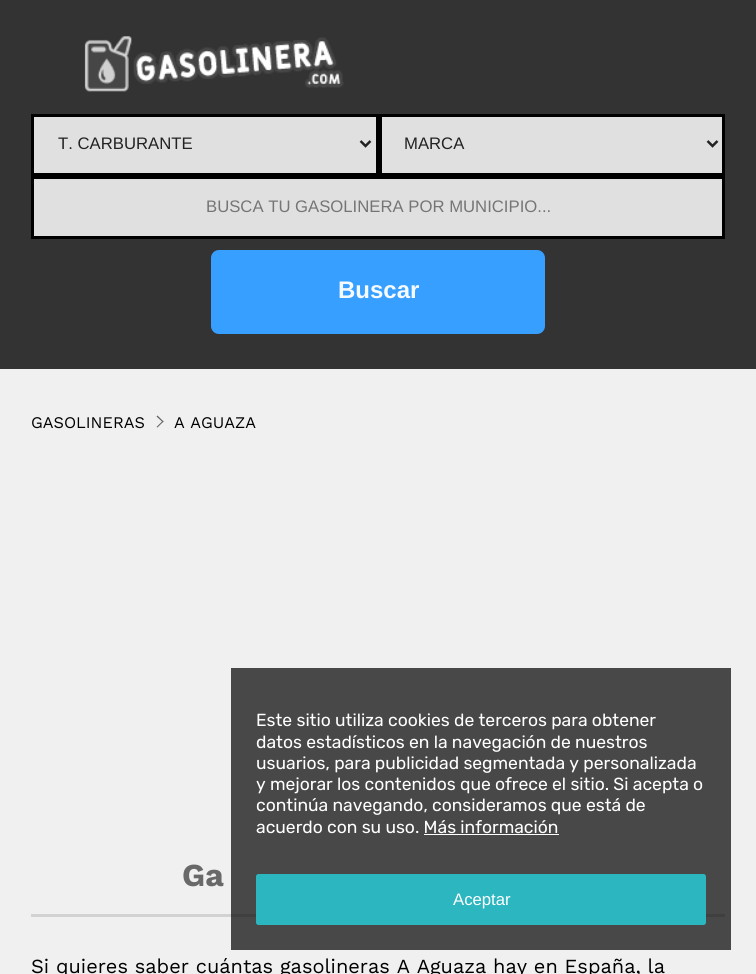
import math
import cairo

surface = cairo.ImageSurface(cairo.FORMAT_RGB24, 756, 974)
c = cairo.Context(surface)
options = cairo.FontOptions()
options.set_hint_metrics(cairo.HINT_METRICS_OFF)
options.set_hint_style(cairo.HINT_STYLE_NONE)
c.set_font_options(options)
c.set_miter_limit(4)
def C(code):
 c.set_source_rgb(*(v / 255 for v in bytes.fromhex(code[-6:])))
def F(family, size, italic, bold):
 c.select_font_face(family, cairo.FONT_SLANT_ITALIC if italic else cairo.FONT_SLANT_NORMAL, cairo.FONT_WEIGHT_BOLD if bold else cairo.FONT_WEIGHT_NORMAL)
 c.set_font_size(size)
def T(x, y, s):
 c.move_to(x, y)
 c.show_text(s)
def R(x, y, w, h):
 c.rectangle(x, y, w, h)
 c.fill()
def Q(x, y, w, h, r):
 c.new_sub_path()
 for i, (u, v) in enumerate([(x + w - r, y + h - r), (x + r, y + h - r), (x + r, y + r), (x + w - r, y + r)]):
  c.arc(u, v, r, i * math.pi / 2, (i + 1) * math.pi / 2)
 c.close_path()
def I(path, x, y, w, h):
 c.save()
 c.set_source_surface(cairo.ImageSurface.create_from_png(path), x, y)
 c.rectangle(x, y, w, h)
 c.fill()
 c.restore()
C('f0f0f0')
c.paint()
C('333333')
R(0,0,756,369)
I('1.png',84,36,260,56)
C('e0e0e0')
c.rectangle(32.5,115.5,345,59)
c.fill_preserve()
C('000000')
c.set_line_width(3)
c.stroke()
c.new_path()
c.move_to(360.5,141)
c.line_to(365.5,146)
c.line_to(370.5,141)
C('222222')
c.set_line_width(2.5)
c.stroke()
F('Liberation Sans',16.7,0,0)
T(58,149,'T. CARBURANTE')
C('e0e0e0')
c.rectangle(380.5,115.5,343,59)
c.fill_preserve()
C('000000')
c.set_line_width(3)
c.stroke()
c.new_path()
c.move_to(707.5,141)
c.line_to(712.5,146)
c.line_to(717.5,141)
C('222222')
c.set_line_width(2.5)
c.stroke()
T(404,149,'MARCA')
C('e0e0e0')
c.rectangle(32.5,177.5,691,60)
c.fill_preserve()
C('000000')
c.set_line_width(3)
c.stroke()
C('757575')
T(206,212,'BUSCA TU GASOLINERA POR MUNICIPIO...')
C('379fff')
Q(208.5,247.5,339,89,10.5)
c.fill_preserve()
C('333333')
c.set_line_width(5)
c.stroke()
F('Liberation Sans',24,0,1)
C('f5faff')
T(338,298,'Buscar')
F('Work Sans',16.25,0,0)
C('000000')
T(31,428,'GASOLINERAS')
C('626262')
c.new_path()
c.move_to(156.5,416.5)
c.line_to(157.5,415.5)
c.line_to(163.5,421.5)
c.line_to(163,422.5)
c.close_path()
c.fill()
c.new_path()
c.move_to(156.5,427)
c.line_to(163,420.5)
c.line_to(163.5,421.5)
c.line_to(157.5,427.5)
c.close_path()
c.fill()
C('000000')
T(174,428,'A AGUAZA')
C('d2d2d2')
R(31,914,694,3)
F('Work Sans',32,0,1)
C('696969')
T(182,886,'Ga')
F('Work Sans',20,0,0)
C('000000')
T(31,973,'Si quieres saber cuántas gasolineras A Aguaza hay en España, la')
c.set_source_rgba(0,0,0,0.7)
R(231,668,500,282)
F('Rubik',17.5,0,0)
C('ffffff')
T(256,726,'Este sitio utiliza cookies de terceros para obtener')
T(256,748,'datos estadísticos en la navegación de nuestros')
T(256,769,'usuarios, para publicidad segmentada y personalizada')
T(256,790,'y mejorar los contenidos que ofrece el sitio. Si acepta o')
T(256,811,'continúa navegando, consideramos que está de')
T(256,833,'acuerdo con su uso. Más información')
R(424,834,135,1)
C('2cb6bf')
Q(256,874,450,51,2.5)
c.fill()
F('Liberation Sans',16.7,0,0)
C('ffffff')
T(453,905,'Aceptar')
surface.write_to_png('o.png')
